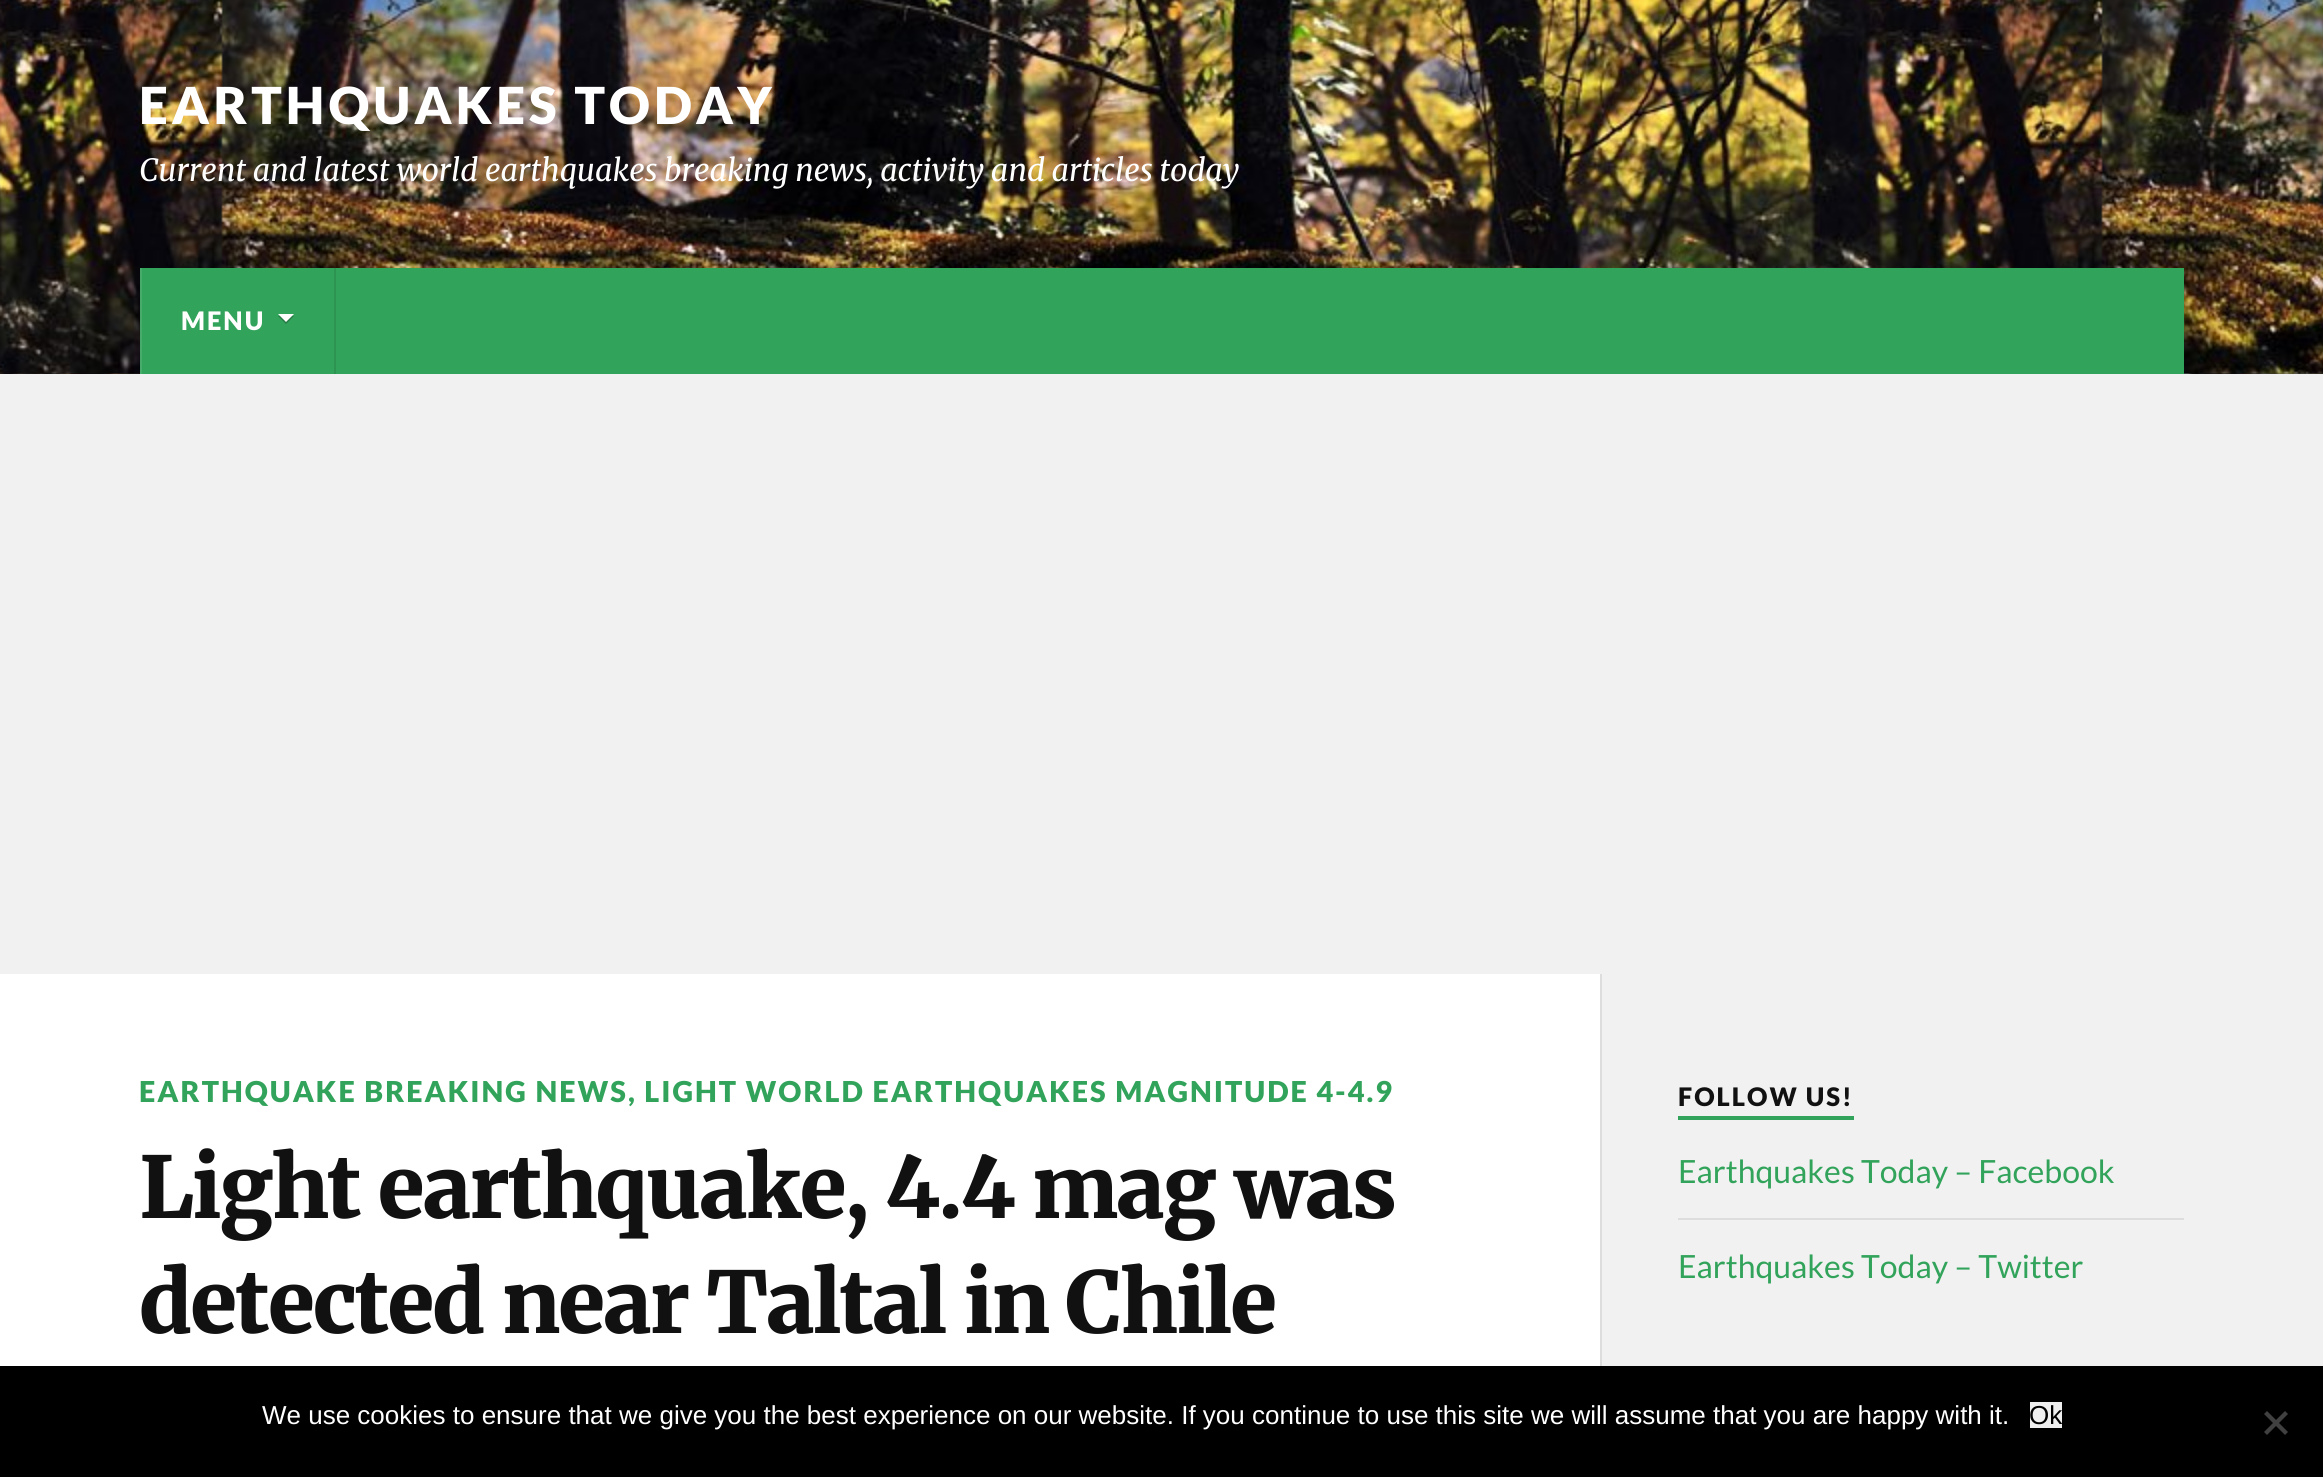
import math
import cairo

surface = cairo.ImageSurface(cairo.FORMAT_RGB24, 2323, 1477)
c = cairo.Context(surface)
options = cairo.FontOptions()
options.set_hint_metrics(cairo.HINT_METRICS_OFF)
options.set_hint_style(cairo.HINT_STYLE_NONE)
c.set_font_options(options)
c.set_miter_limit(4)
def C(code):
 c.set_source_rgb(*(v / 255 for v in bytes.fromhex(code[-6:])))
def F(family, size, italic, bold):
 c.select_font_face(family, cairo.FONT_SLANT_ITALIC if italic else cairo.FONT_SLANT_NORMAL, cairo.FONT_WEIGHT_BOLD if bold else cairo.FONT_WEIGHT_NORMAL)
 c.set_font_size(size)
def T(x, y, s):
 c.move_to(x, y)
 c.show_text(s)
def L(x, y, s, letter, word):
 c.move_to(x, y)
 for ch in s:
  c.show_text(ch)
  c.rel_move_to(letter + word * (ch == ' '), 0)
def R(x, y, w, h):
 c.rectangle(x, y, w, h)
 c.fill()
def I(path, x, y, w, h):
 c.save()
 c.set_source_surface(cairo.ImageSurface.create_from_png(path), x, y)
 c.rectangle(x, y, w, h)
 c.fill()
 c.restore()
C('f1f1f1')
c.paint()
I('1.png',0,0,2323,374)
F('Lato Black',51,0,0)
C('ffffff')
L(139,124,'EARTHQUAKES TODAY',4,0)
F('Merriweather Light',30.6,1,0)
T(139,181,'Current and latest world earthquakes breaking news, activity and articles today')
C('32a35a')
R(142,268,2042,106)
C('2d9351')
R(334,268,2,106)
C('47ac6b')
R(140,268,2,106)
F('Lato Black',25.5,0,0)
C('ffffff')
L(181,330,'MENU',2,0)
C('267a44')
c.new_path()
c.move_to(278,316)
c.line_to(294,316)
c.line_to(286,324)
c.close_path()
c.fill()
C('ffffff')
c.new_path()
c.move_to(278,314)
c.line_to(294,314)
c.line_to(286,322)
c.close_path()
c.fill()
R(0,974,1600,392)
F('Lato Black',28.8,0,0)
C('32a35a')
L(139,1102,'EARTHQUAKE BREAKING NEWS, LIGHT WORLD EARTHQUAKES MAGNITUDE 4-4.9',2,0)
F('Merriweather Black',85,0,0)
C('111111')
L(139,1218,'Light earthquake, 4.4 mag was',-2,0)
L(139,1333,'detected near Taltal in Chile',-2,0)
C('dddddd')
R(1600,974,2,392)
C('32a35a')
R(1678,1116,176,4)
F('Lato Black',25.5,0,0)
C('111111')
L(1678,1106,'FOLLOW US!',2,0)
C('dddddd')
R(1678,1218,506,2)
F('Lato',32,0,0)
C('32a35a')
T(1678,1183,'Earthquakes Today – Facebook')
T(1678,1278,'Earthquakes Today – Twitter')
C('000000')
R(0,1366,2323,111)
F('Liberation Sans',26,0,0)
C('ffffff')
T(262,1424,'We use cookies to ensure that we give you the best experience on our website. If you continue to use this site we will assume that you are happy with it.')
C('efefef')
R(2030,1402,32,26)
C('000000')
T(2029,1424,'Ok')
C('404040')
c.new_path()
c.move_to(2285,1411)
c.line_to(2288,1414)
c.line_to(2267,1435)
c.line_to(2264,1432)
c.close_path()
c.fill()
c.new_path()
c.move_to(2264,1414)
c.line_to(2267,1411)
c.line_to(2288,1432)
c.line_to(2285,1435)
c.close_path()
c.fill()
surface.write_to_png('o.png')
